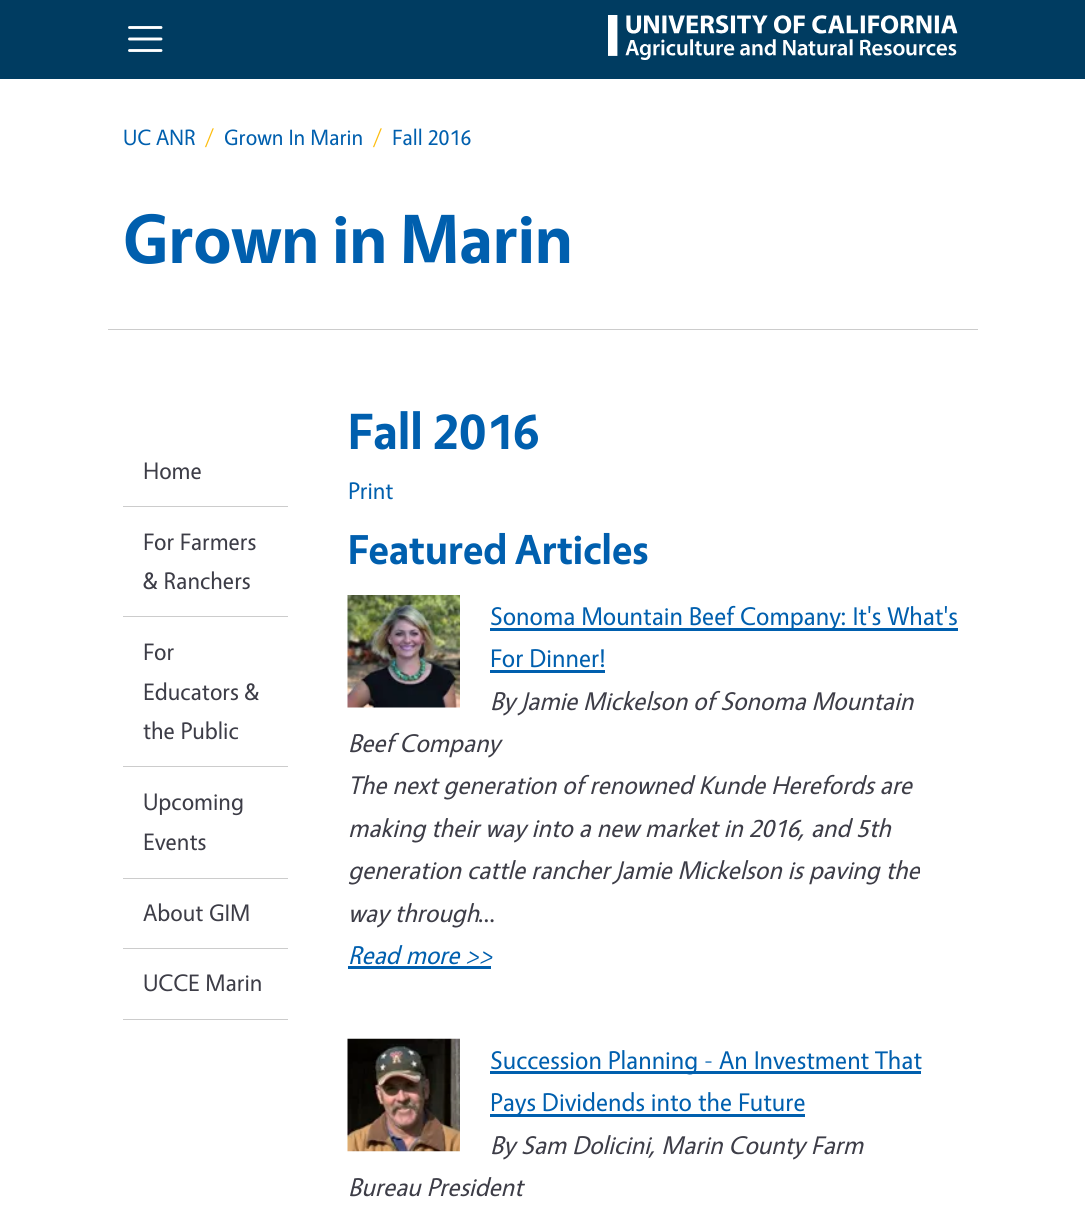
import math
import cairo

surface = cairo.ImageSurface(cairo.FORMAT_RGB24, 1085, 1218)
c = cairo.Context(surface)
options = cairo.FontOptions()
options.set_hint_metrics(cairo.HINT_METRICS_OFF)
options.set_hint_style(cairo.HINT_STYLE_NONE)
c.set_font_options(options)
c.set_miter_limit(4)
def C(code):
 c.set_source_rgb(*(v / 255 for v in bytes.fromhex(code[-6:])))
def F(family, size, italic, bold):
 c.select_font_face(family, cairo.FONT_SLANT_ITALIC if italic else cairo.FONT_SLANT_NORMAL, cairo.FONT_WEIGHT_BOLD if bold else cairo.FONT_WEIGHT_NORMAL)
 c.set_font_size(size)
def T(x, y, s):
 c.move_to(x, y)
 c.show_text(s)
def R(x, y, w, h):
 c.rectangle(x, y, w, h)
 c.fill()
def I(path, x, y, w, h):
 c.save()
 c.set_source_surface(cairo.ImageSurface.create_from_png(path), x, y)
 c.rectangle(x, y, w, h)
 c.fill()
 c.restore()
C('ffffff')
c.paint()
C('003c61')
R(0,0,1085,79)
c.new_path()
c.move_to(129.5,27.5)
c.line_to(161,27.5)
c.move_to(129.5,39)
c.line_to(161,39)
c.move_to(129.5,50.5)
c.line_to(161,50.5)
C('ffffff')
c.set_line_width(2.9)
c.set_line_cap(cairo.LINE_CAP_ROUND)
c.stroke()
I('1.png',608,15,350,45)
F('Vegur',22.25,0,0)
C('005fae')
T(123,145,'UC ANR')
C('fdbd10')
T(205,145,'/')
C('005fae')
T(224,145,'Grown In Marin')
C('fdbd10')
T(373,145,'/')
C('005fae')
T(392,145,'Fall 2016')
C('cccccc')
R(108,329,870,1)
F('Vegur',70,0,1)
C('005fae')
T(123,263,'Grown in Marin')
C('cccccc')
R(123,506,165,1)
F('Vegur',24,0,0)
C('3d3d47')
T(143,479,'Home')
C('cccccc')
R(123,616,165,1)
C('3d3d47')
T(143,550,'For Farmers')
T(143,589,'& Ranchers')
C('cccccc')
R(123,766,165,1)
C('3d3d47')
T(143,660,'For')
T(143,700,'Educators &')
T(143,739,'the Public')
C('cccccc')
R(123,878,165,1)
C('3d3d47')
T(143,810,'Upcoming')
T(143,850,'Events')
C('cccccc')
R(123,948,165,1)
C('3d3d47')
T(143,921,'About GIM')
C('cccccc')
R(123,1019,165,1)
C('3d3d47')
T(143,991,'UCCE Marin')
F('Vegur',51.5,0,1)
C('005fae')
T(348,449,'Fall 2016')
F('Vegur',24,0,0)
T(348,499,'Print')
F('Vegur',42.25,0,1)
T(348,564,'Featured Articles')
I('2.png',347,595,113,113)
R(490,628,468,3)
F('Vegur',25.7,0,0)
T(490,625,'Sonoma Mountain Beef Company: It\'s What\'s')
T(490,667,'For Dinner!')
R(490,670,115,3)
F('Vegur',25.7,1,0)
C('3d3d47')
T(490,710,'By Jamie Mickelson of Sonoma Mountain')
T(348,752,'Beef Company')
T(348,794,'The next generation of renowned Kunde Herefords are')
T(348,837,'making their way into a new market in 2016, and 5th')
T(348,879,'generation cattle rancher Jamie Mickelson is paving the')
T(348,922,'way through')
F('Vegur',25.7,0,0)
T(478,922,'...')
F('Vegur',25.7,1,0)
C('005fae')
T(348,964,'Read more >>')
R(348,966,143,3)
I('3.png',347,1038,113,114)
R(490,1071,431,3)
F('Vegur',25.7,0,0)
T(490,1069,'Succession Planning - An Investment That')
R(490,1114,315,3)
T(490,1111,'Pays Dividends into the Future')
F('Vegur',25.7,1,0)
C('3d3d47')
T(490,1154,'By Sam Dolicini, Marin County Farm')
T(348,1196,'Bureau President')
surface.write_to_png('o.png')
